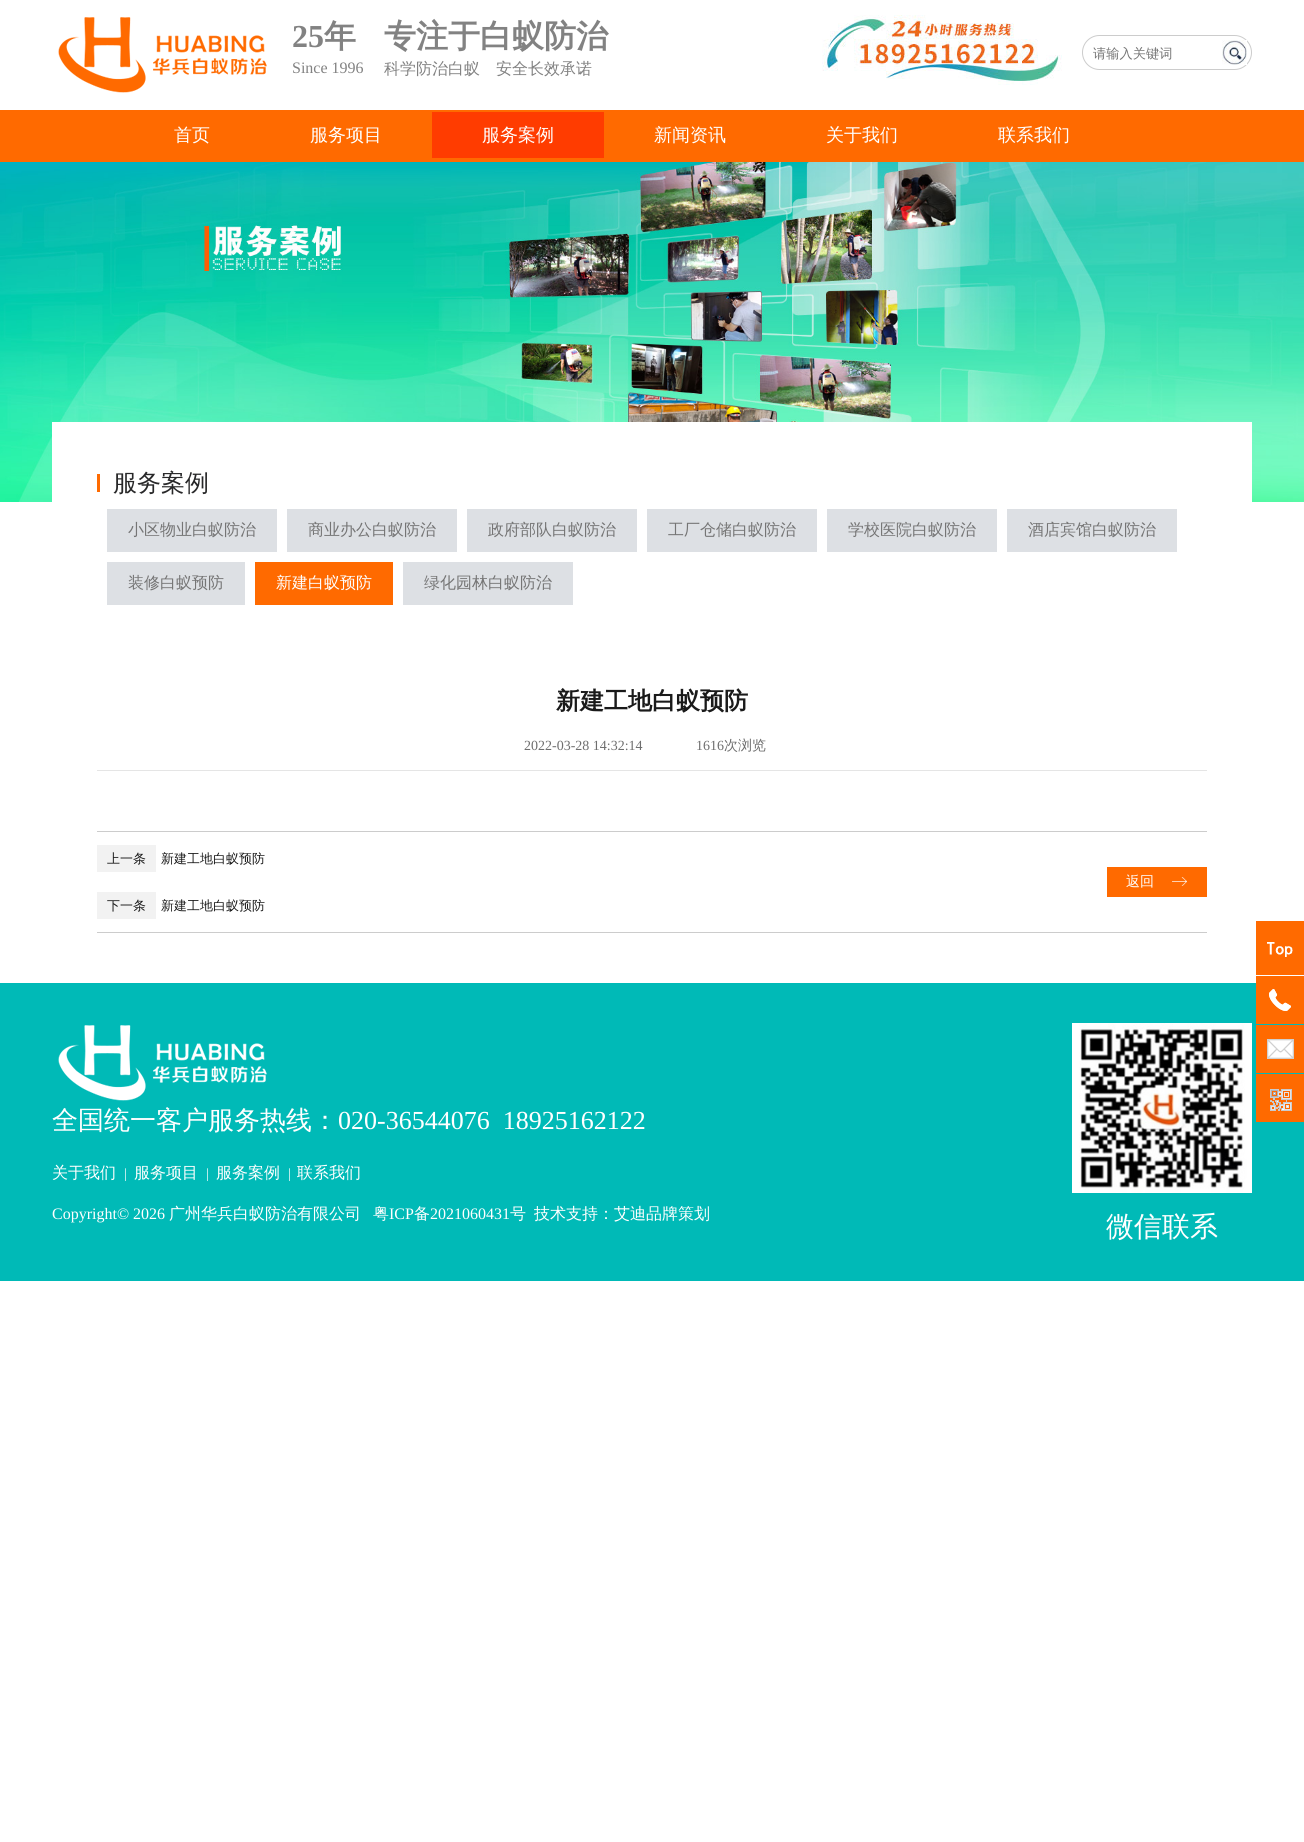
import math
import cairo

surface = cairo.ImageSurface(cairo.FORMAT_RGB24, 1304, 1842)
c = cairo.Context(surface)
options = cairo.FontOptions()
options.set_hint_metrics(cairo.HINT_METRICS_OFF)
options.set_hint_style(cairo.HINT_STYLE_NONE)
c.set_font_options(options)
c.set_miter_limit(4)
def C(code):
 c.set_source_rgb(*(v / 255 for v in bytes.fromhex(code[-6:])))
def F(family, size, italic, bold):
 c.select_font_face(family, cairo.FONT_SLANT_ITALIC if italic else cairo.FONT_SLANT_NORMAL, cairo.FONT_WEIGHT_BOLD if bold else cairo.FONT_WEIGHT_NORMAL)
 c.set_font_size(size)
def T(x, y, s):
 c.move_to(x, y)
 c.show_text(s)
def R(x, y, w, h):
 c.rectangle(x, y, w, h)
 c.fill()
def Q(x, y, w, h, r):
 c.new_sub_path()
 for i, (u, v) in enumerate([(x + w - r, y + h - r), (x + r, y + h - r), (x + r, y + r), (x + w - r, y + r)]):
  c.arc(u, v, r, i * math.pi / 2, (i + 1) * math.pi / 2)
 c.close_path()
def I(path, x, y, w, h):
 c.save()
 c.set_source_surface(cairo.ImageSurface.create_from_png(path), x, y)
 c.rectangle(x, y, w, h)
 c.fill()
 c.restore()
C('ffffff')
c.paint()
I('1.png',58,17,209,76)
F('Liberation Serif',32,0,1)
C('828282')
T(292,47,'25')
F('WenQuanYi Zen Hei',32,0,1)
T(324,47,'年')
F('Liberation Serif',16,0,0)
T(292,73,'Since 1996')
F('WenQuanYi Zen Hei',32,0,1)
T(384,47,'专注于白蚁防治')
F('WenQuanYi Zen Hei Medium',16,0,0)
T(384,74,'科学防治白蚁')
T(496,74,'安全长效承诺')
I('2.png',822,15,240,70)
Q(1082.5,35.5,169,34,17)
C('cccccc')
c.set_line_width(1)
c.stroke()
F('WenQuanYi Zen Hei Medium',13.25,0,0)
C('757575')
T(1093,58,'请输入关键词')
I('3.png',1222,40,25,25)
C('ff6a00')
R(0,110,1304,52)
F('WenQuanYi Zen Hei Medium',18,0,0)
C('ffffff')
T(174,141,'首页')
T(310,141,'服务项目')
C('ff3c00')
R(432,112,172,46)
C('ffffff')
T(482,141,'服务案例')
T(654,141,'新闻资讯')
T(826,141,'关于我们')
T(998,141,'联系我们')
I('4.png',0,162,1304,340)
R(52,422,1200,80)
C('ff6b01')
R(97,474,3,18)
F('WenQuanYi Zen Hei Medium',24,0,0)
C('282829')
T(113,491,'服务案例')
C('dde0e4')
R(107,509,170,43)
F('WenQuanYi Zen Hei Medium',16,0,0)
C('757575')
T(128,535,'小区物业白蚁防治')
C('dde0e4')
R(287,509,170,43)
C('757575')
T(308,535,'商业办公白蚁防治')
C('dde0e4')
R(467,509,170,43)
C('757575')
T(488,535,'政府部队白蚁防治')
C('dde0e4')
R(647,509,170,43)
C('757575')
T(668,535,'工厂仓储白蚁防治')
C('dde0e4')
R(827,509,170,43)
C('757575')
T(848,535,'学校医院白蚁防治')
C('dde0e4')
R(1007,509,170,43)
C('757575')
T(1028,535,'酒店宾馆白蚁防治')
C('dde0e4')
R(107,562,138,43)
C('757575')
T(128,588,'装修白蚁预防')
C('ff6a00')
R(255,562,138,43)
C('ffffff')
T(276,588,'新建白蚁预防')
C('dde0e4')
R(403,562,170,43)
C('757575')
T(424,588,'绿化园林白蚁防治')
C('e5e5e5')
R(97,770,1110,1)
F('WenQuanYi Zen Hei',24,0,1)
C('1a1a1a')
T(556,709,'新建工地白蚁预防')
F('Liberation Serif',14,0,0)
C('6e6e6e')
T(524,750,'2022-03-28 14:32:14')
T(696,750,'1616')
F('WenQuanYi Zen Hei Medium',14,0,0)
T(724,750,'次浏览')
C('cccccc')
R(97,831,1110,1)
R(97,932,1110,1)
C('f2f2f2')
R(97,845,59,27)
F('WenQuanYi Zen Hei Medium',13,0,0)
C('1a1a1a')
T(107,863,'上一条')
T(161,863,'新建工地白蚁预防')
C('f2f2f2')
R(97,892,59,27)
C('1a1a1a')
T(107,910,'下一条')
T(161,910,'新建工地白蚁预防')
C('ff6a00')
R(1107,867,100,30)
I('5.png',1172,877,15,9)
F('WenQuanYi Zen Hei Medium',14,0,0)
C('ffffff')
T(1126,886,'返回')
C('00bab7')
R(0,983,1304,298)
I('6.png',58,1025,209,76)
F('WenQuanYi Zen Hei Medium',26,0,0)
C('ffffff')
T(52,1129,'全国统一客户服务热线：')
F('Liberation Serif',26,0,0)
T(338,1129,'020-36544076  18925162122')
F('WenQuanYi Zen Hei Medium',16,0,0)
T(52,1178,'关于我们')
F('Liberation Serif',14,0,0)
T(124,1178,'|')
F('WenQuanYi Zen Hei Medium',16,0,0)
T(134,1178,'服务项目')
F('Liberation Serif',14,0,0)
T(206,1178,'|')
F('WenQuanYi Zen Hei Medium',16,0,0)
T(216,1178,'服务案例')
F('Liberation Serif',14,0,0)
T(288,1178,'|')
F('WenQuanYi Zen Hei Medium',16,0,0)
T(297,1178,'联系我们')
F('Liberation Serif',16,0,0)
T(52,1219,'Copyright© 2026')
F('WenQuanYi Zen Hei Medium',16,0,0)
T(169,1219,'广州华兵白蚁防治有限公司')
T(373,1219,'粤')
F('Liberation Serif',16,0,0)
T(389,1219,'ICP')
F('WenQuanYi Zen Hei Medium',16,0,0)
T(414,1219,'备')
F('Liberation Serif',16,0,0)
T(430,1219,'2021060431')
F('WenQuanYi Zen Hei Medium',16,0,0)
T(510,1219,'号')
T(534,1219,'技术支持：艾迪品牌策划')
I('7.png',1072,1023,180,170)
F('WenQuanYi Zen Hei Medium',28,0,0)
T(1106,1236,'微信联系')
C('ff6a00')
R(1256,921,48,54)
I('8.png',1267,942,26,15)
R(1256,976,48,48)
I('9.png',1269,989,22,22)
R(1256,1025,48,48)
I('10.png',1267,1039,27,20)
R(1256,1074,48,48)
I('11.png',1270,1089,22,22)
surface.write_to_png('o.png')
